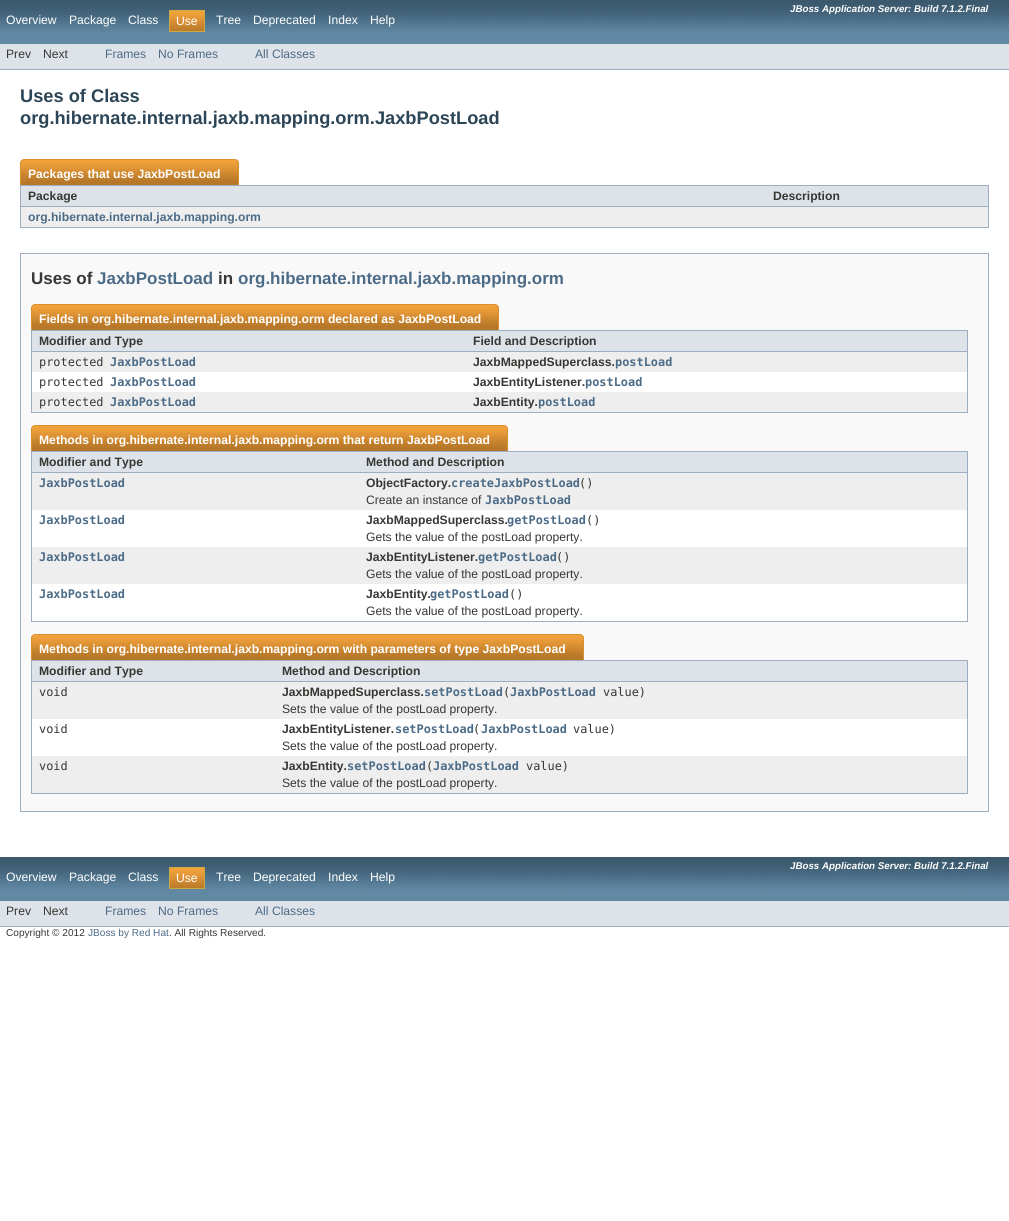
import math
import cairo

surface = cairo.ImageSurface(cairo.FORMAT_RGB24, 1009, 1221)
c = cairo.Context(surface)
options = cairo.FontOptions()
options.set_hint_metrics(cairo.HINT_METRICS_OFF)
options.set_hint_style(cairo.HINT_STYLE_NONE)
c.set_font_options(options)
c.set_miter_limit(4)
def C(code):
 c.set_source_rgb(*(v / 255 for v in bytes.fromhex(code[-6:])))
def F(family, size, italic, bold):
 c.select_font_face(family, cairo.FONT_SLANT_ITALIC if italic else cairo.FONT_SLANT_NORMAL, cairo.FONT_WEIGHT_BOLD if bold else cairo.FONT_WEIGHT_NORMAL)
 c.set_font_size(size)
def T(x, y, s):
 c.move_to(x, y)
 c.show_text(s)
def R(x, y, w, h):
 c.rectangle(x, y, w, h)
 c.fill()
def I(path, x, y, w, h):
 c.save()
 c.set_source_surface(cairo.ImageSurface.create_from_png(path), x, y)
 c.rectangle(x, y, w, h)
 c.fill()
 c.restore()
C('ffffff')
c.paint()
I('1.png',0,0,1009,44)
F('Liberation Sans',9.75,1,1)
C('ffffff')
T(790,12,'JBoss Application Server: Build 7.1.2.Final')
F('Liberation Sans',12.15,0,0)
T(6,24,'Overview')
T(69,24,'Package')
T(128,24,'Class')
I('2.png',170,11,34,20)
c.rectangle(169.5,10.5,35,21)
C('c9aa44')
c.set_line_width(1)
c.stroke()
C('ffffff')
T(176,25,'Use')
T(216,24,'Tree')
T(253,24,'Deprecated')
T(328,24,'Index')
T(370,24,'Help')
C('dee3e9')
R(0,44,1009,25)
C('9eadc0')
R(0,69,1009,1)
C('353833')
T(6,58,'Prev')
T(43,58,'Next')
C('4c6b87')
T(105,58,'Frames')
T(158,58,'No Frames')
T(255,58,'All Classes')
F('Liberation Sans',18.25,0,1)
C('2c4557')
T(20,102,'Uses of Class')
T(20,124,'org.hibernate.internal.jaxb.mapping.orm.JaxbPostLoad')
C('9eadc0')
R(20,227,969,1)
I('3.png',20,159,201,26)
F('Liberation Sans',12.15,0,1)
C('ffffff')
T(28,178,'Packages that use JaxbPostLoad')
I('4.png',221,159,18,26)
C('dee3e9')
R(21,186,967,20)
C('9eadc0')
R(20,185,969,1)
R(20,206,746,1)
R(20,185,1,42)
C('353833')
T(28,200,'Package')
C('9eadc0')
R(988,185,1,42)
R(766,206,223,1)
C('353833')
T(773,200,'Description')
C('eeeeef')
R(21,207,967,20)
C('4c6b87')
T(28,221,'org.hibernate.internal.jaxb.mapping.orm')
C('f9f9f9')
c.rectangle(20.5,253.5,968,558)
c.fill_preserve()
C('9eadc0')
c.stroke()
F('Liberation Sans',17,0,1)
C('353833')
T(31,284,'Uses of')
C('4c6b87')
T(97,284,'JaxbPostLoad')
C('353833')
T(218,284,'in')
C('4c6b87')
T(238,284,'org.hibernate.internal.jaxb.mapping.orm')
C('9eadc0')
R(31,412,937,1)
I('5.png',31,304,450,26)
F('Liberation Sans',12.15,0,1)
C('ffffff')
T(39,323,'Fields in org.hibernate.internal.jaxb.mapping.orm declared as JaxbPostLoad')
I('4.png',481,304,18,26)
C('dee3e9')
R(32,331,935,20)
C('9eadc0')
R(31,330,937,1)
R(31,351,435,1)
R(31,330,1,82)
C('353833')
T(39,345,'Modifier and Type')
C('9eadc0')
R(967,330,1,82)
R(466,351,502,1)
C('353833')
T(473,345,'Field and Description')
C('eeeeef')
R(32,352,935,20)
F('DejaVu Sans Mono',11.9,0,0)
C('353833')
T(39,366,'protected')
F('DejaVu Sans Mono',11.9,0,1)
C('4c6b87')
T(110,366,'JaxbPostLoad')
F('Liberation Sans',12.15,0,1)
C('353833')
T(473,366,'JaxbMappedSuperclass.')
F('DejaVu Sans Mono',11.9,0,1)
C('4c6b87')
T(615,366,'postLoad')
C('ffffff')
R(32,372,935,20)
F('DejaVu Sans Mono',11.9,0,0)
C('353833')
T(39,386,'protected')
F('DejaVu Sans Mono',11.9,0,1)
C('4c6b87')
T(110,386,'JaxbPostLoad')
F('Liberation Sans',12.15,0,1)
C('353833')
T(473,386,'JaxbEntityListener.')
F('DejaVu Sans Mono',11.9,0,1)
C('4c6b87')
T(585,386,'postLoad')
C('eeeeef')
R(32,392,935,20)
F('DejaVu Sans Mono',11.9,0,0)
C('353833')
T(39,406,'protected')
F('DejaVu Sans Mono',11.9,0,1)
C('4c6b87')
T(110,406,'JaxbPostLoad')
F('Liberation Sans',12.15,0,1)
C('353833')
T(473,406,'JaxbEntity.')
F('DejaVu Sans Mono',11.9,0,1)
C('4c6b87')
T(538,406,'postLoad')
C('9eadc0')
R(31,621,937,1)
I('6.png',31,425,459,26)
F('Liberation Sans',12.15,0,1)
C('ffffff')
T(39,444,'Methods in org.hibernate.internal.jaxb.mapping.orm that return JaxbPostLoad')
I('4.png',490,425,18,26)
C('dee3e9')
R(32,452,935,20)
C('9eadc0')
R(31,451,937,1)
R(31,472,328,1)
R(31,451,1,170)
C('353833')
T(39,466,'Modifier and Type')
C('9eadc0')
R(967,451,1,170)
R(359,472,609,1)
C('353833')
T(366,466,'Method and Description')
C('eeeeef')
R(32,473,935,37)
F('DejaVu Sans Mono',11.9,0,1)
C('4c6b87')
T(39,487,'JaxbPostLoad')
F('Liberation Sans',12.15,0,1)
C('353833')
T(366,487,'ObjectFactory.')
F('DejaVu Sans Mono',11.9,0,1)
C('4c6b87')
T(451,487,'createJaxbPostLoad')
F('DejaVu Sans Mono',11.9,0,0)
C('353833')
T(579,487,'()')
F('Liberation Sans',12.15,0,0)
T(366,504,'Create an instance of')
F('DejaVu Sans Mono',11.9,0,1)
C('4c6b87')
T(485,504,'JaxbPostLoad')
C('ffffff')
R(32,510,935,37)
C('4c6b87')
T(39,524,'JaxbPostLoad')
F('Liberation Sans',12.15,0,1)
C('353833')
T(366,524,'JaxbMappedSuperclass.')
F('DejaVu Sans Mono',11.9,0,1)
C('4c6b87')
T(507,524,'getPostLoad')
F('DejaVu Sans Mono',11.9,0,0)
C('353833')
T(586,524,'()')
F('Liberation Sans',12.15,0,0)
T(366,541,'Gets the value of the postLoad property.')
C('eeeeef')
R(32,547,935,37)
F('DejaVu Sans Mono',11.9,0,1)
C('4c6b87')
T(39,561,'JaxbPostLoad')
F('Liberation Sans',12.15,0,1)
C('353833')
T(366,561,'JaxbEntityListener.')
F('DejaVu Sans Mono',11.9,0,1)
C('4c6b87')
T(478,561,'getPostLoad')
F('DejaVu Sans Mono',11.9,0,0)
C('353833')
T(556,561,'()')
F('Liberation Sans',12.15,0,0)
T(366,578,'Gets the value of the postLoad property.')
C('ffffff')
R(32,584,935,37)
F('DejaVu Sans Mono',11.9,0,1)
C('4c6b87')
T(39,598,'JaxbPostLoad')
F('Liberation Sans',12.15,0,1)
C('353833')
T(366,598,'JaxbEntity.')
F('DejaVu Sans Mono',11.9,0,1)
C('4c6b87')
T(430,598,'getPostLoad')
F('DejaVu Sans Mono',11.9,0,0)
C('353833')
T(509,598,'()')
F('Liberation Sans',12.15,0,0)
T(366,615,'Gets the value of the postLoad property.')
C('9eadc0')
R(31,793,937,1)
I('7.png',31,634,535,26)
F('Liberation Sans',12.15,0,1)
C('ffffff')
T(39,653,'Methods in org.hibernate.internal.jaxb.mapping.orm with parameters of type JaxbPostLoad')
I('4.png',566,634,18,26)
C('dee3e9')
R(32,661,935,20)
C('9eadc0')
R(31,660,937,1)
R(31,681,244,1)
R(31,660,1,133)
C('353833')
T(39,675,'Modifier and Type')
C('9eadc0')
R(967,660,1,133)
R(275,681,693,1)
C('353833')
T(282,675,'Method and Description')
C('eeeeef')
R(32,682,935,37)
F('DejaVu Sans Mono',11.9,0,0)
C('353833')
T(39,696,'void')
F('Liberation Sans',12.15,0,1)
T(282,696,'JaxbMappedSuperclass.')
F('DejaVu Sans Mono',11.9,0,1)
C('4c6b87')
T(424,696,'setPostLoad JaxbPostLoad')
F('DejaVu Sans Mono',11.9,0,0)
C('353833')
T(603,696,'value)')
T(503,696,'(')
F('Liberation Sans',12.15,0,0)
T(282,713,'Sets the value of the postLoad property.')
C('ffffff')
R(32,719,935,37)
F('DejaVu Sans Mono',11.9,0,0)
C('353833')
T(39,733,'void')
F('Liberation Sans',12.15,0,1)
T(282,733,'JaxbEntityListener.')
F('DejaVu Sans Mono',11.9,0,1)
C('4c6b87')
T(395,733,'setPostLoad JaxbPostLoad')
F('DejaVu Sans Mono',11.9,0,0)
C('353833')
T(573,733,'value)')
T(473,733,'(')
F('Liberation Sans',12.15,0,0)
T(282,750,'Sets the value of the postLoad property.')
C('eeeeef')
R(32,756,935,37)
F('DejaVu Sans Mono',11.9,0,0)
C('353833')
T(39,770,'void')
F('Liberation Sans',12.15,0,1)
T(282,770,'JaxbEntity.')
F('DejaVu Sans Mono',11.9,0,1)
C('4c6b87')
T(347,770,'setPostLoad JaxbPostLoad')
F('DejaVu Sans Mono',11.9,0,0)
C('353833')
T(526,770,'value)')
T(426,770,'(')
F('Liberation Sans',12.15,0,0)
T(282,787,'Sets the value of the postLoad property.')
I('1.png',0,857,1009,44)
F('Liberation Sans',9.75,1,1)
C('ffffff')
T(790,869,'JBoss Application Server: Build 7.1.2.Final')
F('Liberation Sans',12.15,0,0)
T(6,881,'Overview')
T(69,881,'Package')
T(128,881,'Class')
I('2.png',170,868,34,20)
c.rectangle(169.5,867.5,35,21)
C('c9aa44')
c.stroke()
C('ffffff')
T(176,882,'Use')
T(216,881,'Tree')
T(253,881,'Deprecated')
T(328,881,'Index')
T(370,881,'Help')
C('dee3e9')
R(0,901,1009,25)
C('9eadc0')
R(0,926,1009,1)
C('353833')
T(6,915,'Prev')
T(43,915,'Next')
C('4c6b87')
T(105,915,'Frames')
T(158,915,'No Frames')
T(255,915,'All Classes')
F('Liberation Sans',10.1,0,0)
C('353833')
T(6,936,'Copyright © 2012')
C('4c6b87')
T(88,936,'JBoss by Red Hat')
C('353833')
T(169,936,'. All Rights Reserved.')
surface.write_to_png('o.png')
